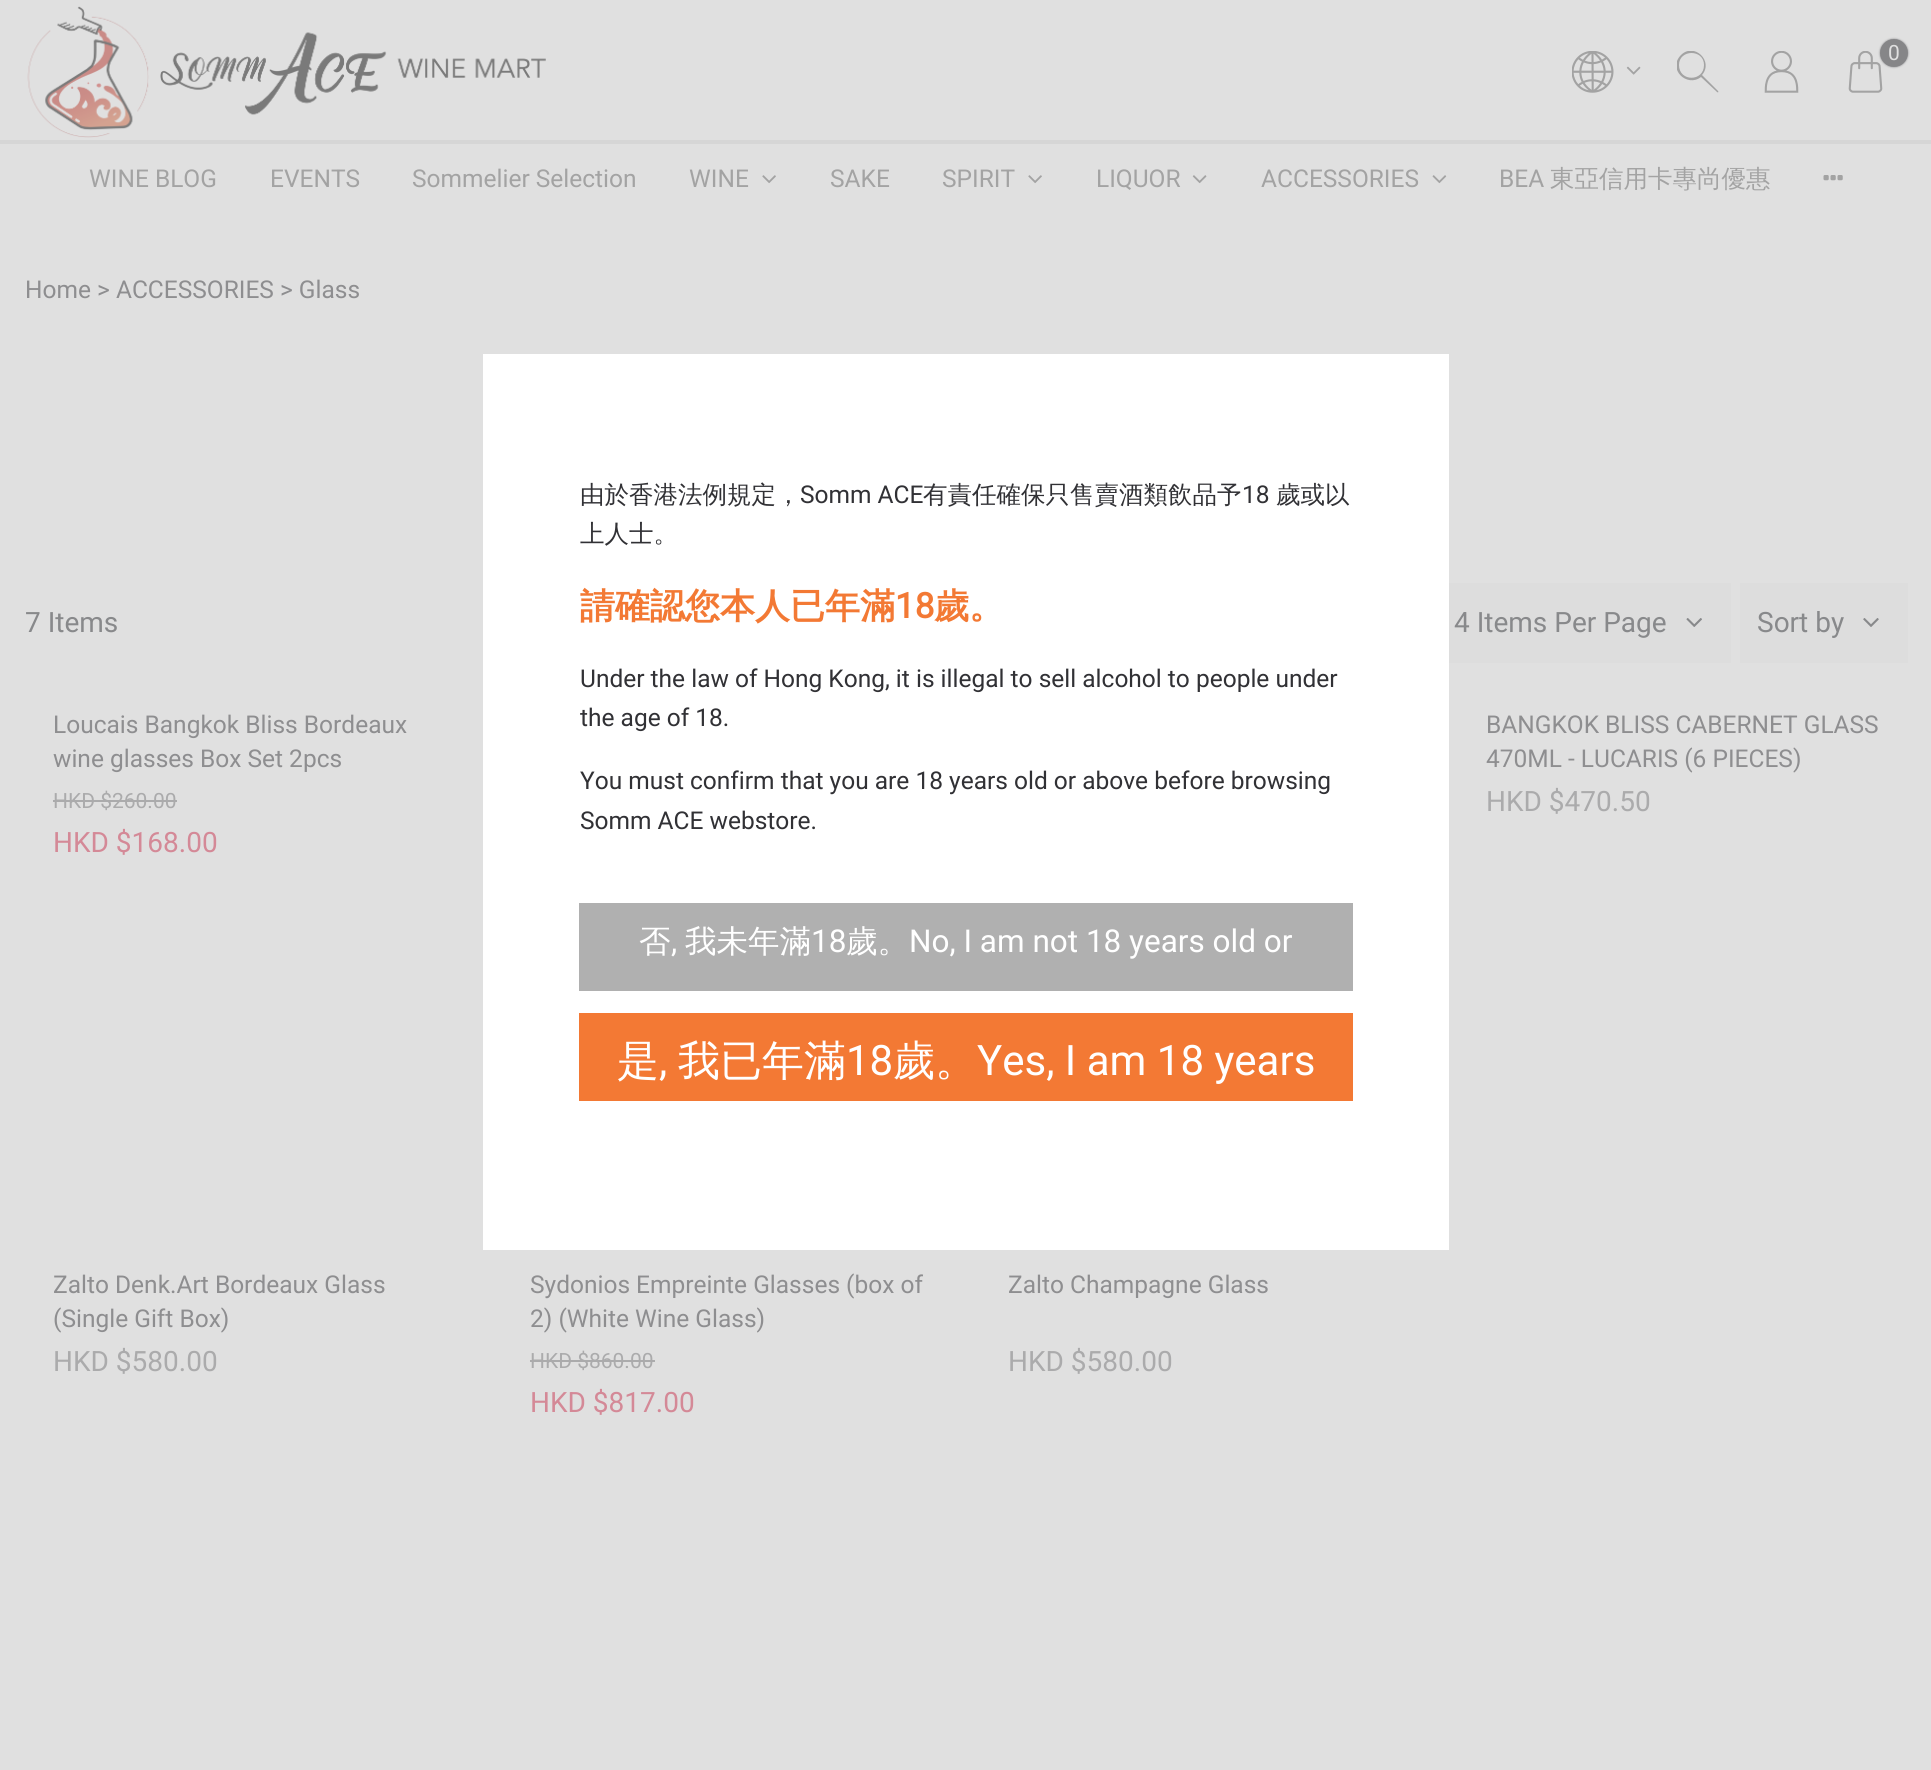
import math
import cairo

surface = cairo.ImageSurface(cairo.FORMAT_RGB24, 1931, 1770)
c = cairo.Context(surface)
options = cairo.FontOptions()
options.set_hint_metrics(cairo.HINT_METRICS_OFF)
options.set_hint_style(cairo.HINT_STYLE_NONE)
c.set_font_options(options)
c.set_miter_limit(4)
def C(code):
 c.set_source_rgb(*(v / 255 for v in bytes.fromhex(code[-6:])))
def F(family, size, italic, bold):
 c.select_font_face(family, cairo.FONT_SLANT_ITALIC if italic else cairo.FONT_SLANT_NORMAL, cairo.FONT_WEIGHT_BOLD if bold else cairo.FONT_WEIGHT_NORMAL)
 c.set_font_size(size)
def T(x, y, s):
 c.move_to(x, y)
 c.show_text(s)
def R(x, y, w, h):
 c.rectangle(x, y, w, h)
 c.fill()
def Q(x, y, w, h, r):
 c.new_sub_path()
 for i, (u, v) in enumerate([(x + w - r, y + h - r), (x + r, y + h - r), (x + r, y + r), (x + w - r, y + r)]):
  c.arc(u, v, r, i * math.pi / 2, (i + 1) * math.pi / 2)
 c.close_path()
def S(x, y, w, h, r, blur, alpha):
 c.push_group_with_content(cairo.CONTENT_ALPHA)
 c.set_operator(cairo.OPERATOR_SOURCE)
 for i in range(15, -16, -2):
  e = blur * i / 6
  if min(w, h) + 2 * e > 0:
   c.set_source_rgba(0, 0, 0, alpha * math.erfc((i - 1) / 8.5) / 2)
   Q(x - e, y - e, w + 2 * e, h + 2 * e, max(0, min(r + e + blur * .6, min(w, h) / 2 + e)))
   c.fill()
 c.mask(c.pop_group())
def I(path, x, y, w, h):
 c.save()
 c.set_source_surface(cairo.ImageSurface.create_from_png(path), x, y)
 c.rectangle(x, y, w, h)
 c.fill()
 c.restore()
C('e0e0e0')
c.paint()
I('1.png',27,6,519,132)
I('2.png',1572,51,42,42)
I('3.png',1626,66,15,9)
c.save()
c.rectangle(1677,51,42,42)
c.clip()
C('a3a3a3')
c.new_path()
c.move_to(1718,91)
c.line_to(1702,75)
c.curve_to(1714,61,1694,42,1681,55)
c.curve_to(1667,69,1687,88,1701,77)
c.line_to(1717,92)
c.curve_to(1718,93,1719,92,1718,91)
c.close_path()
c.move_to(1679,65)
c.curve_to(1679,49,1704,49,1704,65)
c.curve_to(1704,82,1679,82,1679,65)
c.close_path()
c.fill()
c.restore()
I('4.png',1764,51,35,42)
I('5.png',1848,51,35,42)
C('868688')
S(1880,39,28,28,14,1,1)
C('868688')
c.arc(1894,53,14,0,2 * math.pi)
c.fill()
F('Roboto',21,0,0)
C('e0e0e0')
T(1888,60,'0')
C('d6d6d6')
R(0,140,1931,4)
F('Roboto',24.5,0,0)
C('a3a3a3')
T(89,187,'WINE BLOG')
T(270,187,'EVENTS')
T(412,187,'Sommelier Selection')
T(689,187,'WINE')
I('6.png',762,175,14,9)
T(830,187,'SAKE')
T(942,187,'SPIRIT')
I('6.png',1028,175,14,9)
T(1096,187,'LIQUOR')
I('7.png',1192,175,15,9)
T(1261,187,'ACCESSORIES')
I('8.png',1432,175,15,9)
T(1499,187,'BEA')
F('WenQuanYi Zen Hei Medium',24.5,0,0)
T(1550,187,'東亞信用卡專尚優惠')
I('9.png',1823,175,20,6)
F('Roboto',24.5,0,0)
C('8e8e90')
T(25,298,'Home > ACCESSORIES > Glass')
F('Roboto',28,0,0)
C('88898b')
T(25,632,'7 Items')
C('dddddd')
R(1449,583,282,80)
C('88898b')
T(1454,632,'4 Items Per Page')
I('10.png',1686,618,16,9)
C('dddddd')
R(1740,583,168,80)
C('88898b')
T(1757,632,'Sort by')
I('11.png',1863,618,16,9)
F('Roboto',24.5,0,0)
C('8e8e90')
T(53,733,'Loucais Bangkok Bliss Bordeaux')
T(53,767,'wine glasses Box Set 2pcs')
F('Roboto',21,0,0)
C('ababac')
T(53,808,'HKD $260.00')
R(53,800,124,2)
F('Roboto',28,0,0)
C('d48997')
T(53,852,'HKD $168.00')
F('Roboto',24.5,0,0)
C('8e8e90')
T(1486,733,'BANGKOK BLISS CABERNET GLASS')
T(1486,767,'470ML - LUCARIS (6 PIECES)')
F('Roboto',28,0,0)
C('ababac')
T(1486,811,'HKD $470.50')
F('Roboto',24.5,0,0)
C('8e8e90')
T(53,1293,'Zalto Denk.Art Bordeaux Glass')
T(53,1327,'(Single Gift Box)')
F('Roboto',28,0,0)
C('ababac')
T(53,1371,'HKD $580.00')
F('Roboto',24.5,0,0)
C('8e8e90')
T(530,1293,'Sydonios Empreinte Glasses (box of')
T(530,1327,'2) (White Wine Glass)')
F('Roboto',21,0,0)
C('ababac')
T(530,1368,'HKD $860.00')
R(530,1360,125,2)
F('Roboto',28,0,0)
C('d48997')
T(530,1412,'HKD $817.00')
F('Roboto',24.5,0,0)
C('8e8e90')
T(1008,1293,'Zalto Champagne Glass')
F('Roboto',28,0,0)
C('ababac')
T(1008,1371,'HKD $580.00')
C('ffffff')
R(483,354,966,896)
F('WenQuanYi Zen Hei Medium',24.5,0,0)
C('313135')
T(580,503,'由於香港法例規定，')
F('Roboto',24.5,0,0)
T(800,503,'Somm ACE')
F('WenQuanYi Zen Hei Medium',24.5,0,0)
T(923,503,'有責任確保只售賣酒類飲品予')
F('Roboto',24.5,0,0)
T(1242,503,'18')
F('WenQuanYi Zen Hei Medium',24.5,0,0)
T(1276,503,'歲或以')
T(580,542,'上人士。')
F('WenQuanYi Zen Hei',35,0,1)
C('f37934')
T(580,618,'請確認您本人已年滿')
F('Roboto',35,0,1)
T(895,618,'18')
F('WenQuanYi Zen Hei',35,0,1)
T(934,618,'歲。')
F('Roboto',24.5,0,0)
C('313135')
T(580,687,'Under the law of Hong Kong, it is illegal to sell alcohol to people under')
T(580,726,'the age of 18.')
T(580,789,'You must confirm that you are 18 years old or above before browsing')
T(580,829,'Somm ACE webstore.')
C('b0b0b0')
R(579,903,774,88)
F('WenQuanYi Zen Hei Medium',31.5,0,0)
C('ffffff')
T(639,952,'否')
F('Roboto',31.5,0,0)
T(671,952,',')
F('WenQuanYi Zen Hei Medium',31.5,0,0)
T(685,952,'我未年滿')
F('Roboto',31.5,0,0)
T(811,952,'18')
F('WenQuanYi Zen Hei Medium',31.5,0,0)
T(846,952,'歲。')
F('Roboto',31.5,0,0)
T(909,952,'No, I am not 18 years old or')
C('f37934')
R(579,1013,774,88)
F('WenQuanYi Zen Hei Medium',42,0,0)
C('ffffff')
T(617,1075,'是')
F('Roboto',42,0,0)
T(659,1075,',')
F('WenQuanYi Zen Hei Medium',42,0,0)
T(678,1075,'我已年滿')
F('Roboto',42,0,0)
T(846,1075,'18')
F('WenQuanYi Zen Hei Medium',42,0,0)
T(893,1075,'歲。')
F('Roboto',42,0,0)
T(977,1075,'Yes, I am 18 years')
surface.write_to_png('o.png')
